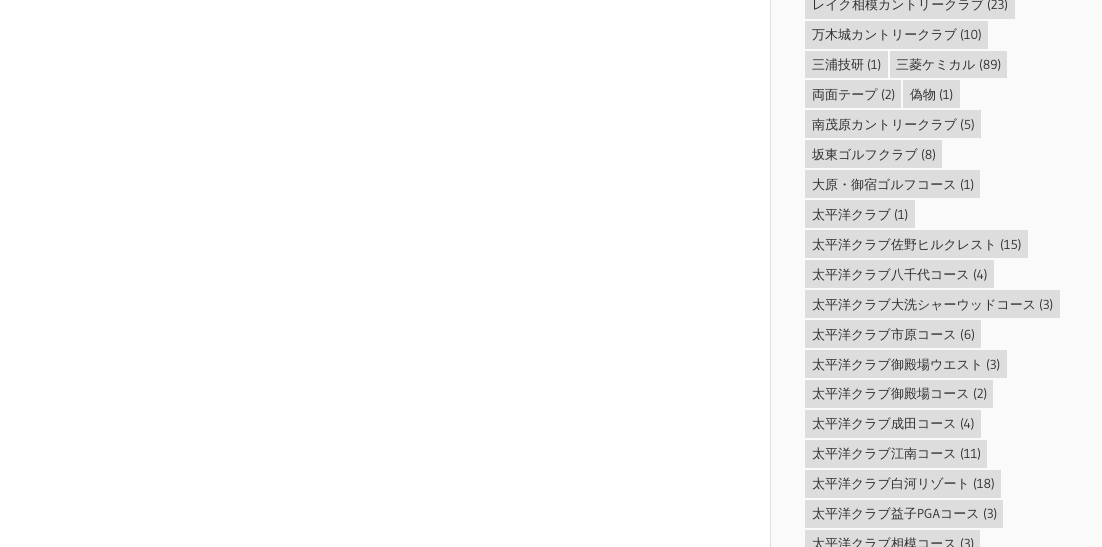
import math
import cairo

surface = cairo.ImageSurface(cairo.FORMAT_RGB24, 1102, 547)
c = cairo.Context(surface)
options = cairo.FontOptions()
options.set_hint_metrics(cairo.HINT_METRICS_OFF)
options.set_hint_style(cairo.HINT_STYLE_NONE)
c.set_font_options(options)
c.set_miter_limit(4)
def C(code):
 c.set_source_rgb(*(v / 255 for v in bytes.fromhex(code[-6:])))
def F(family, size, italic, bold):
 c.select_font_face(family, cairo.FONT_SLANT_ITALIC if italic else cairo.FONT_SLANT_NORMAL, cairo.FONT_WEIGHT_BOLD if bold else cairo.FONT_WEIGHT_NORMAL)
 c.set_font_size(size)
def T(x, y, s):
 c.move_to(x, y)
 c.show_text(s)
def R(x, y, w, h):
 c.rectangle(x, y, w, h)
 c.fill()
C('ffffff')
c.paint()
C('fafafa')
R(771,0,330,547)
C('dddddd')
R(770,0,1,547)
R(805,0,210,19)
F('WenQuanYi Zen Hei Medium',13,0,0)
C('303030')
T(812,9,'レイク相模カントリークラブ')
F('Gudea',13,0,0)
T(987,9,'(23)')
C('dddddd')
R(805,21,183,28)
F('WenQuanYi Zen Hei Medium',13,0,0)
C('303030')
T(812,39,'万木城カントリークラブ')
F('Gudea',13,0,0)
T(960,39,'(10)')
C('dddddd')
R(805,51,83,27)
F('WenQuanYi Zen Hei Medium',13,0,0)
C('303030')
T(812,69,'三浦技研')
F('Gudea',13,0,0)
T(867,69,'(1)')
C('dddddd')
R(890,51,117,27)
F('WenQuanYi Zen Hei Medium',13,0,0)
C('303030')
T(896,69,'三菱ケミカル')
F('Gudea',13,0,0)
T(979,69,'(89)')
C('dddddd')
R(805,80,96,28)
F('WenQuanYi Zen Hei Medium',13,0,0)
C('303030')
T(812,99,'両面テープ')
F('Gudea',13,0,0)
T(881,99,'(2)')
C('dddddd')
R(903,80,57,28)
F('WenQuanYi Zen Hei Medium',13,0,0)
C('303030')
T(910,99,'偽物')
F('Gudea',13,0,0)
T(939,99,'(1)')
C('dddddd')
R(805,110,176,28)
F('WenQuanYi Zen Hei Medium',13,0,0)
C('303030')
T(812,129,'南茂原カントリークラブ')
F('Gudea',13,0,0)
T(960,129,'(5)')
C('dddddd')
R(805,140,137,28)
F('WenQuanYi Zen Hei Medium',13,0,0)
C('303030')
T(812,159,'坂東ゴルフクラブ')
F('Gudea',13,0,0)
T(921,159,'(8)')
C('dddddd')
R(805,170,175,28)
F('WenQuanYi Zen Hei Medium',13,0,0)
C('303030')
T(812,189,'大原・御宿ゴルフコース')
F('Gudea',13,0,0)
T(960,189,'(1)')
C('dddddd')
R(805,200,110,28)
F('WenQuanYi Zen Hei Medium',13,0,0)
C('303030')
T(812,219,'太平洋クラブ')
F('Gudea',13,0,0)
T(894,219,'(1)')
C('dddddd')
R(805,230,223,28)
F('WenQuanYi Zen Hei Medium',13,0,0)
C('303030')
T(812,249,'太平洋クラブ佐野ヒルクレスト')
F('Gudea',13,0,0)
T(1000,249,'(15)')
C('dddddd')
R(805,260,189,28)
F('WenQuanYi Zen Hei Medium',13,0,0)
C('303030')
T(812,279,'太平洋クラブ八千代コース')
F('Gudea',13,0,0)
T(973,279,'(4)')
C('dddddd')
R(805,290,255,28)
F('WenQuanYi Zen Hei Medium',13,0,0)
C('303030')
T(812,309,'太平洋クラブ大洗シャーウッドコース')
F('Gudea',13,0,0)
T(1039,309,'(3)')
C('dddddd')
R(805,320,176,28)
F('WenQuanYi Zen Hei Medium',13,0,0)
C('303030')
T(812,339,'太平洋クラブ市原コース')
F('Gudea',13,0,0)
T(960,339,'(6)')
C('dddddd')
R(805,350,202,28)
F('WenQuanYi Zen Hei Medium',13,0,0)
C('303030')
T(812,369,'太平洋クラブ御殿場ウエスト')
F('Gudea',13,0,0)
T(986,369,'(3)')
C('dddddd')
R(805,380,188,28)
F('WenQuanYi Zen Hei Medium',13,0,0)
C('303030')
T(812,398,'太平洋クラブ御殿場コース')
F('Gudea',13,0,0)
T(973,398,'(2)')
C('dddddd')
R(805,410,176,28)
F('WenQuanYi Zen Hei Medium',13,0,0)
C('303030')
T(812,428,'太平洋クラブ成田コース')
F('Gudea',13,0,0)
T(960,428,'(4)')
C('dddddd')
R(805,440,182,28)
F('WenQuanYi Zen Hei Medium',13,0,0)
C('303030')
T(812,458,'太平洋クラブ江南コース')
F('Gudea',13,0,0)
T(960,458,'(11)')
C('dddddd')
R(805,470,196,28)
F('WenQuanYi Zen Hei Medium',13,0,0)
C('303030')
T(812,488,'太平洋クラブ白河リゾート')
F('Gudea',13,0,0)
T(973,488,'(18)')
C('dddddd')
R(805,500,198,28)
F('WenQuanYi Zen Hei Medium',13,0,0)
C('303030')
T(812,518,'太平洋クラブ益子')
F('Gudea',13,0,0)
T(917,518,'PGA')
F('WenQuanYi Zen Hei Medium',13,0,0)
T(940,518,'コース')
F('Gudea',13,0,0)
T(983,518,'(3)')
C('dddddd')
R(805,530,175,17)
F('WenQuanYi Zen Hei Medium',13,0,0)
C('303030')
T(812,548,'太平洋クラブ相模コース')
F('Gudea',13,0,0)
T(960,548,'(3)')
surface.write_to_png('o.png')
